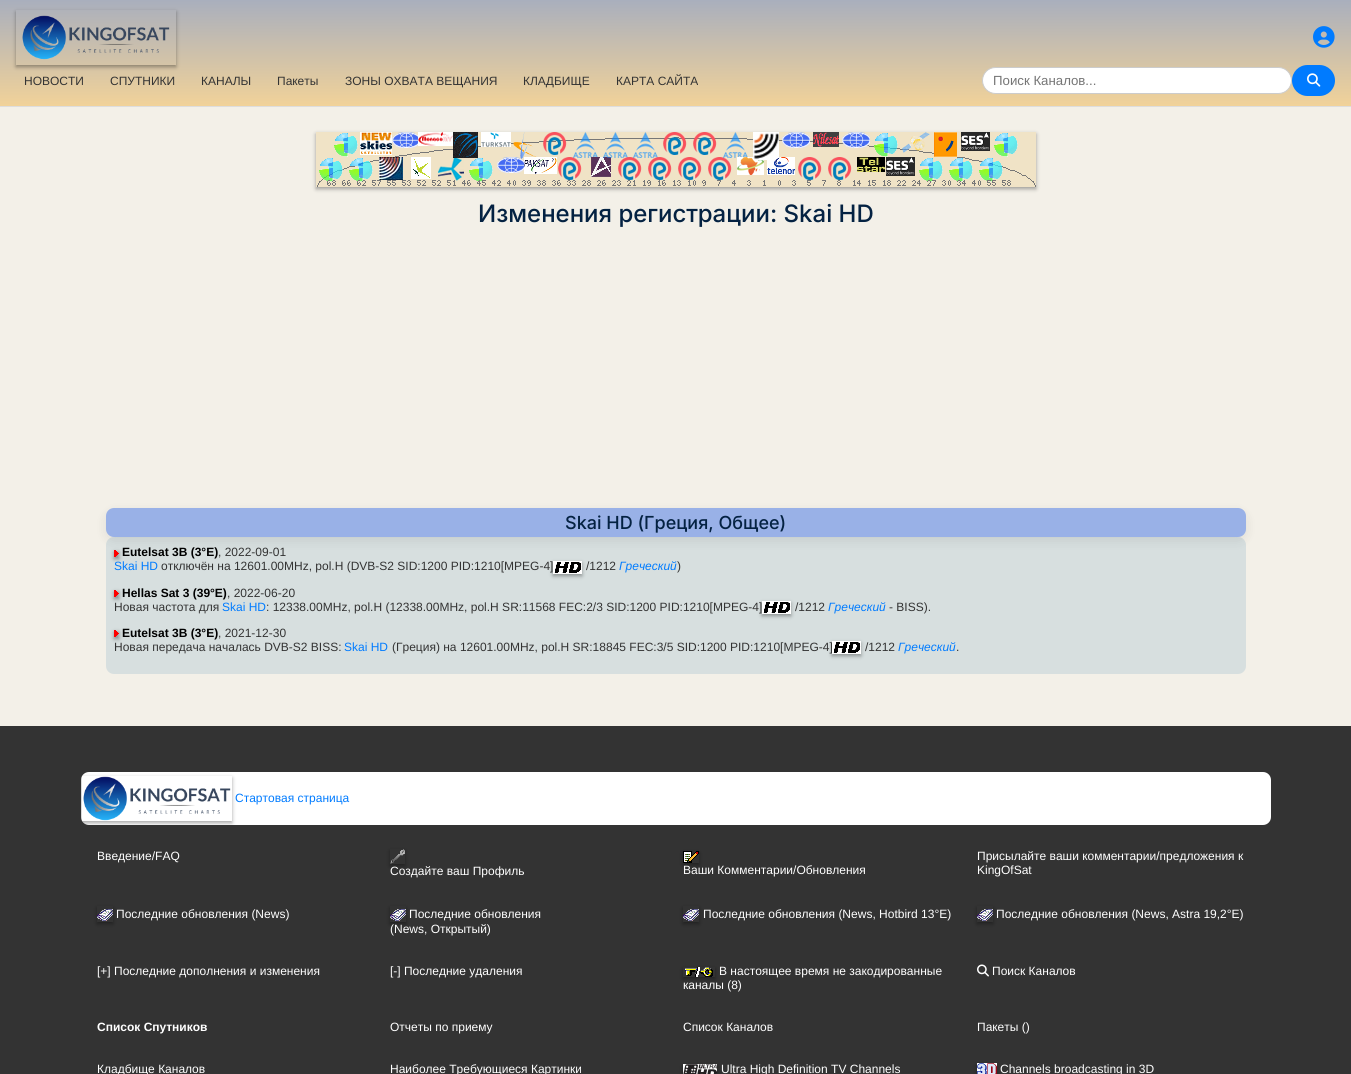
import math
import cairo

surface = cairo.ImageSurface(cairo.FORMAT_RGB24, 1351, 1074)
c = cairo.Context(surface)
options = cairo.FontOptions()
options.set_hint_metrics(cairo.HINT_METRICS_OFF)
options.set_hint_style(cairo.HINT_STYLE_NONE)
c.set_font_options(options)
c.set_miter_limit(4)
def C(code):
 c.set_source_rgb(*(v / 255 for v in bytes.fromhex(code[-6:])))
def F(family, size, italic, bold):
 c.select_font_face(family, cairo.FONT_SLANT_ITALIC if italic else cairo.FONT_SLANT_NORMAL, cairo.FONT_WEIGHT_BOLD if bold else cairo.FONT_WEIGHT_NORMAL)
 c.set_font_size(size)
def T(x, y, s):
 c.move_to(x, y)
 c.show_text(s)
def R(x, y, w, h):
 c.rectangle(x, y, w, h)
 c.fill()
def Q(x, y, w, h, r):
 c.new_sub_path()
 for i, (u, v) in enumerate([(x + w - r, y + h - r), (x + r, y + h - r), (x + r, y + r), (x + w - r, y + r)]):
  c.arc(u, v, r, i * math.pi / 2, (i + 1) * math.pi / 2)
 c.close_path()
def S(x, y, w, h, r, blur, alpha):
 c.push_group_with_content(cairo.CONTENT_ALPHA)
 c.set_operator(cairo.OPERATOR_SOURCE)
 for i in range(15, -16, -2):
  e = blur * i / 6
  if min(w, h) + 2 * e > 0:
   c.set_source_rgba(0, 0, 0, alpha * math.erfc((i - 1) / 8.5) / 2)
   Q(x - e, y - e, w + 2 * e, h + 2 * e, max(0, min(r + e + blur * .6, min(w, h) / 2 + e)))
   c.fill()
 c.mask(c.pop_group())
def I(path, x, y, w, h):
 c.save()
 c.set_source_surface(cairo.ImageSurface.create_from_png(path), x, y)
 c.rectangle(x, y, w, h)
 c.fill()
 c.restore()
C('ffffff')
c.paint()
gradient = cairo.LinearGradient(676,0,676,106)
gradient.add_color_stop_rgba(0,0.663,0.686,0.741,1)
gradient.add_color_stop_rgba(1,0.945,0.824,0.6,1)
c.set_source(gradient)
R(0,0,1351,106)
C('dddddd')
R(0,106,1351,1)
c.save()
c.set_fill_rule(cairo.FILL_RULE_EVEN_ODD)
c.new_path()
c.move_to(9,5)
c.line_to(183,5)
c.line_to(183,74)
c.line_to(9,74)
c.close_path()
c.move_to(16,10)
c.line_to(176,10)
c.line_to(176,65)
c.line_to(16,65)
c.close_path()
c.clip()
C('000000')
S(16,12,160,55,0,2,.35)
c.restore()
I('1.png',22,15,148,45)
I('2.png',1313,26,22,22)
F('Liberation Sans',12,0,0)
C('333333')
T(24,85,'НОВОСТИ')
T(110,85,'СПУТНИКИ')
T(201,85,'КАНАЛЫ')
T(277,85,'Пакеты')
T(345,85,'ЗОНЫ ОХВАТА ВЕЩАНИЯ')
T(523,85,'КЛАДБИЩЕ')
T(616,85,'КАРТА САЙТА')
C('ffffff')
Q(982.5,67.5,309,26,13)
c.fill_preserve()
C('cccccc')
c.set_line_width(1)
c.stroke()
F('Liberation Sans',13.25,0,0)
C('757575')
T(993,85,'Поиск Каналов...')
C('007bff')
Q(1292,65,43,31,15.5)
c.fill()
I('3.png',1307,73,14,14)
C('f3f0e8')
R(0,107,1351,619)
C('000000')
S(316,134,720,55,0,2,.35)
I('4.png',316,132,720,55)
F('Inter Medium',24,0,0)
C('042242')
T(478,222,'Изменения регистрации: Skai HD')
C('d7dfdf')
Q(106,537,1140,137,8)
c.fill()
C('000000')
S(114,552,5,7,0,2,.35)
I('5.png',114,550,5,7)
S(106,512,1140,29,8,6,.08)
C('99b1e7')
Q(106,508,1140,29,8)
c.fill()
F('Inter Medium',18,0,0)
C('042242')
T(565,529,'Skai HD (Греция, Общее)')
F('Liberation Sans',12,0,1)
C('000000')
T(122,556,'Eutelsat 3B (3°E)')
F('Liberation Sans',12,0,0)
C('333333')
T(218,556,', 2022-09-01')
C('007bff')
T(114,570,'Skai HD')
C('333333')
T(161,570,'отключён на 12601.00MHz, pol.H (DVB-S2 SID:1200 PID:1210[MPEG-4]')
C('000000')
S(553,563,29,13,0,2,.35)
I('6.png',553,561,29,13)
C('333333')
T(586,570,'/1212')
F('Liberation Sans',12,1,0)
C('007bff')
T(619,570,'Греческий')
F('Liberation Sans',12,0,0)
C('333333')
T(677,570,')')
C('000000')
S(114,592,5,7,0,2,.35)
F('Liberation Sans',12,0,1)
C('000000')
T(122,597,'Hellas Sat 3 (39°E)')
F('Liberation Sans',12,0,0)
C('333333')
T(227,597,', 2022-06-20')
I('5.png',114,590,5,7)
C('000000')
S(762,603,29,13,0,2,.35)
C('333333')
T(114,611,'Новая частота для')
C('007bff')
T(222,611,'Skai HD')
C('333333')
T(266,611,': 12338.00MHz, pol.H (12338.00MHz, pol.H SR:11568 FEC:2/3 SID:1200 PID:1210[MPEG-4]')
I('6.png',762,601,29,13)
T(795,611,'/1212')
F('Liberation Sans',12,1,0)
C('007bff')
T(828,611,'Греческий')
F('Liberation Sans',12,0,0)
C('333333')
T(889,611,'- BISS).')
C('000000')
S(114,632,5,7,0,2,.35)
F('Liberation Sans',12,0,1)
C('000000')
T(122,637,'Eutelsat 3B (3°E)')
F('Liberation Sans',12,0,0)
C('333333')
T(218,637,', 2021-12-30')
I('5.png',114,630,5,7)
C('000000')
S(832,643,29,13,0,2,.35)
C('333333')
T(114,651,'Новая передача началась DVB-S2 BISS:')
C('007bff')
T(344,651,'Skai HD')
C('333333')
T(392,651,'(Греция) на 12601.00MHz, pol.H SR:18845 FEC:3/5 SID:1200 PID:1210[MPEG-4]')
I('6.png',832,641,29,13)
T(865,651,'/1212')
F('Liberation Sans',12,1,0)
C('007bff')
T(898,651,'Греческий')
F('Liberation Sans',12,0,0)
C('333333')
T(956,651,'.')
R(0,726,1351,348)
C('ffffff')
Q(81,772,1190,53,8)
c.fill()
c.save()
Q(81,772,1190,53,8)
c.clip()
c.set_fill_rule(cairo.FILL_RULE_EVEN_ODD)
c.new_path()
c.move_to(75,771)
c.line_to(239,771)
c.line_to(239,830)
c.line_to(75,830)
c.close_path()
c.move_to(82,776)
c.line_to(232,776)
c.line_to(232,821)
c.line_to(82,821)
c.close_path()
c.clip()
C('000000')
S(82,778,150,45,0,2,.35)
c.restore()
I('7.png',83,776,148,45)
C('007bff')
T(235,802,'Стартовая страница')
C('ffffff')
T(97,860,'Введение/FAQ')
c.save()
c.set_fill_rule(cairo.FILL_RULE_EVEN_ODD)
c.new_path()
c.move_to(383,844)
c.line_to(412,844)
c.line_to(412,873)
c.line_to(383,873)
c.close_path()
c.move_to(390,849)
c.line_to(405,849)
c.line_to(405,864)
c.line_to(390,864)
c.close_path()
c.clip()
C('000000')
S(390,851,15,15,0,2,.35)
c.restore()
I('8.png',390,849,15,15)
T(390,875,'Создайте ваш Профиль')
c.save()
c.set_fill_rule(cairo.FILL_RULE_EVEN_ODD)
c.new_path()
c.move_to(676,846)
c.line_to(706,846)
c.line_to(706,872)
c.line_to(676,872)
c.close_path()
c.move_to(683,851)
c.line_to(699,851)
c.line_to(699,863)
c.line_to(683,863)
c.close_path()
c.clip()
C('000000')
S(683,853,16,12,0,2,.35)
c.restore()
I('9.png',683,851,16,12)
T(683,874,'Ваши Комментарии/Обновления')
T(977,860,'Присылайте ваши комментарии/предложения к')
T(977,874,'KingOfSat')
c.save()
c.set_fill_rule(cairo.FILL_RULE_EVEN_ODD)
c.new_path()
c.move_to(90,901)
c.line_to(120,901)
c.line_to(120,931)
c.line_to(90,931)
c.close_path()
c.move_to(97,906)
c.line_to(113,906)
c.line_to(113,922)
c.line_to(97,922)
c.close_path()
c.clip()
C('000000')
S(97,908,16,16,0,2,.35)
c.restore()
I('10.png',97,909,16,12)
T(116,918,'Последние обновления (News)')
c.save()
c.set_fill_rule(cairo.FILL_RULE_EVEN_ODD)
c.new_path()
c.move_to(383,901)
c.line_to(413,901)
c.line_to(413,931)
c.line_to(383,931)
c.close_path()
c.move_to(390,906)
c.line_to(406,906)
c.line_to(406,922)
c.line_to(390,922)
c.close_path()
c.clip()
C('000000')
S(390,908,16,16,0,2,.35)
c.restore()
I('10.png',390,909,16,12)
T(409,918,'Последние обновления')
T(390,933,'(News, Открытый)')
c.save()
c.set_fill_rule(cairo.FILL_RULE_EVEN_ODD)
c.new_path()
c.move_to(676,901)
c.line_to(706,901)
c.line_to(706,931)
c.line_to(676,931)
c.close_path()
c.move_to(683,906)
c.line_to(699,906)
c.line_to(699,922)
c.line_to(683,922)
c.close_path()
c.clip()
C('000000')
S(683,908,16,16,0,2,.35)
c.restore()
I('10.png',683,909,16,12)
T(703,918,'Последние обновления (News, Hotbird 13°E)')
c.save()
c.set_fill_rule(cairo.FILL_RULE_EVEN_ODD)
c.new_path()
c.move_to(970,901)
c.line_to(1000,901)
c.line_to(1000,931)
c.line_to(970,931)
c.close_path()
c.move_to(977,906)
c.line_to(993,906)
c.line_to(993,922)
c.line_to(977,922)
c.close_path()
c.clip()
C('000000')
S(977,908,16,16,0,2,.35)
c.restore()
I('10.png',977,909,16,12)
T(996,918,'Последние обновления (News, Astra 19,2°E)')
T(97,975,'[+] Последние дополнения и изменения')
T(390,975,'[-] Последние удаления')
c.save()
c.set_fill_rule(cairo.FILL_RULE_EVEN_ODD)
c.new_path()
c.move_to(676,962)
c.line_to(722,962)
c.line_to(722,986)
c.line_to(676,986)
c.close_path()
c.move_to(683,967)
c.line_to(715,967)
c.line_to(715,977)
c.line_to(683,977)
c.close_path()
c.clip()
C('000000')
S(683,969,32,10,0,2,.35)
c.restore()
I('11.png',685,967,28,10)
T(719,975,'В настоящее время не закодированные')
T(683,989,'каналы (8)')
I('12.png',977,964,12,13)
T(992,975,'Поиск Каналов')
F('Liberation Sans',12,0,1)
T(97,1031,'Список Спутников')
F('Liberation Sans',12,0,0)
T(390,1031,'Отчеты по приему')
T(683,1031,'Список Каналов')
T(977,1031,'Пакеты ()')
T(97,1073,'Кладбище Каналов')
T(390,1073,'Наиболее Требующиеся Картинки')
C('000000')
S(683,1066,34,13,0,2,.35)
I('13.png',683,1064,34,10)
C('ffffff')
T(721,1073,'Ultra High Definition TV Channels')
C('000000')
S(977,1065,20,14,0,2,.35)
I('14.png',977,1063,20,11)
C('ffffff')
T(1000,1073,'Channels broadcasting in 3D')
surface.write_to_png('o.png')
